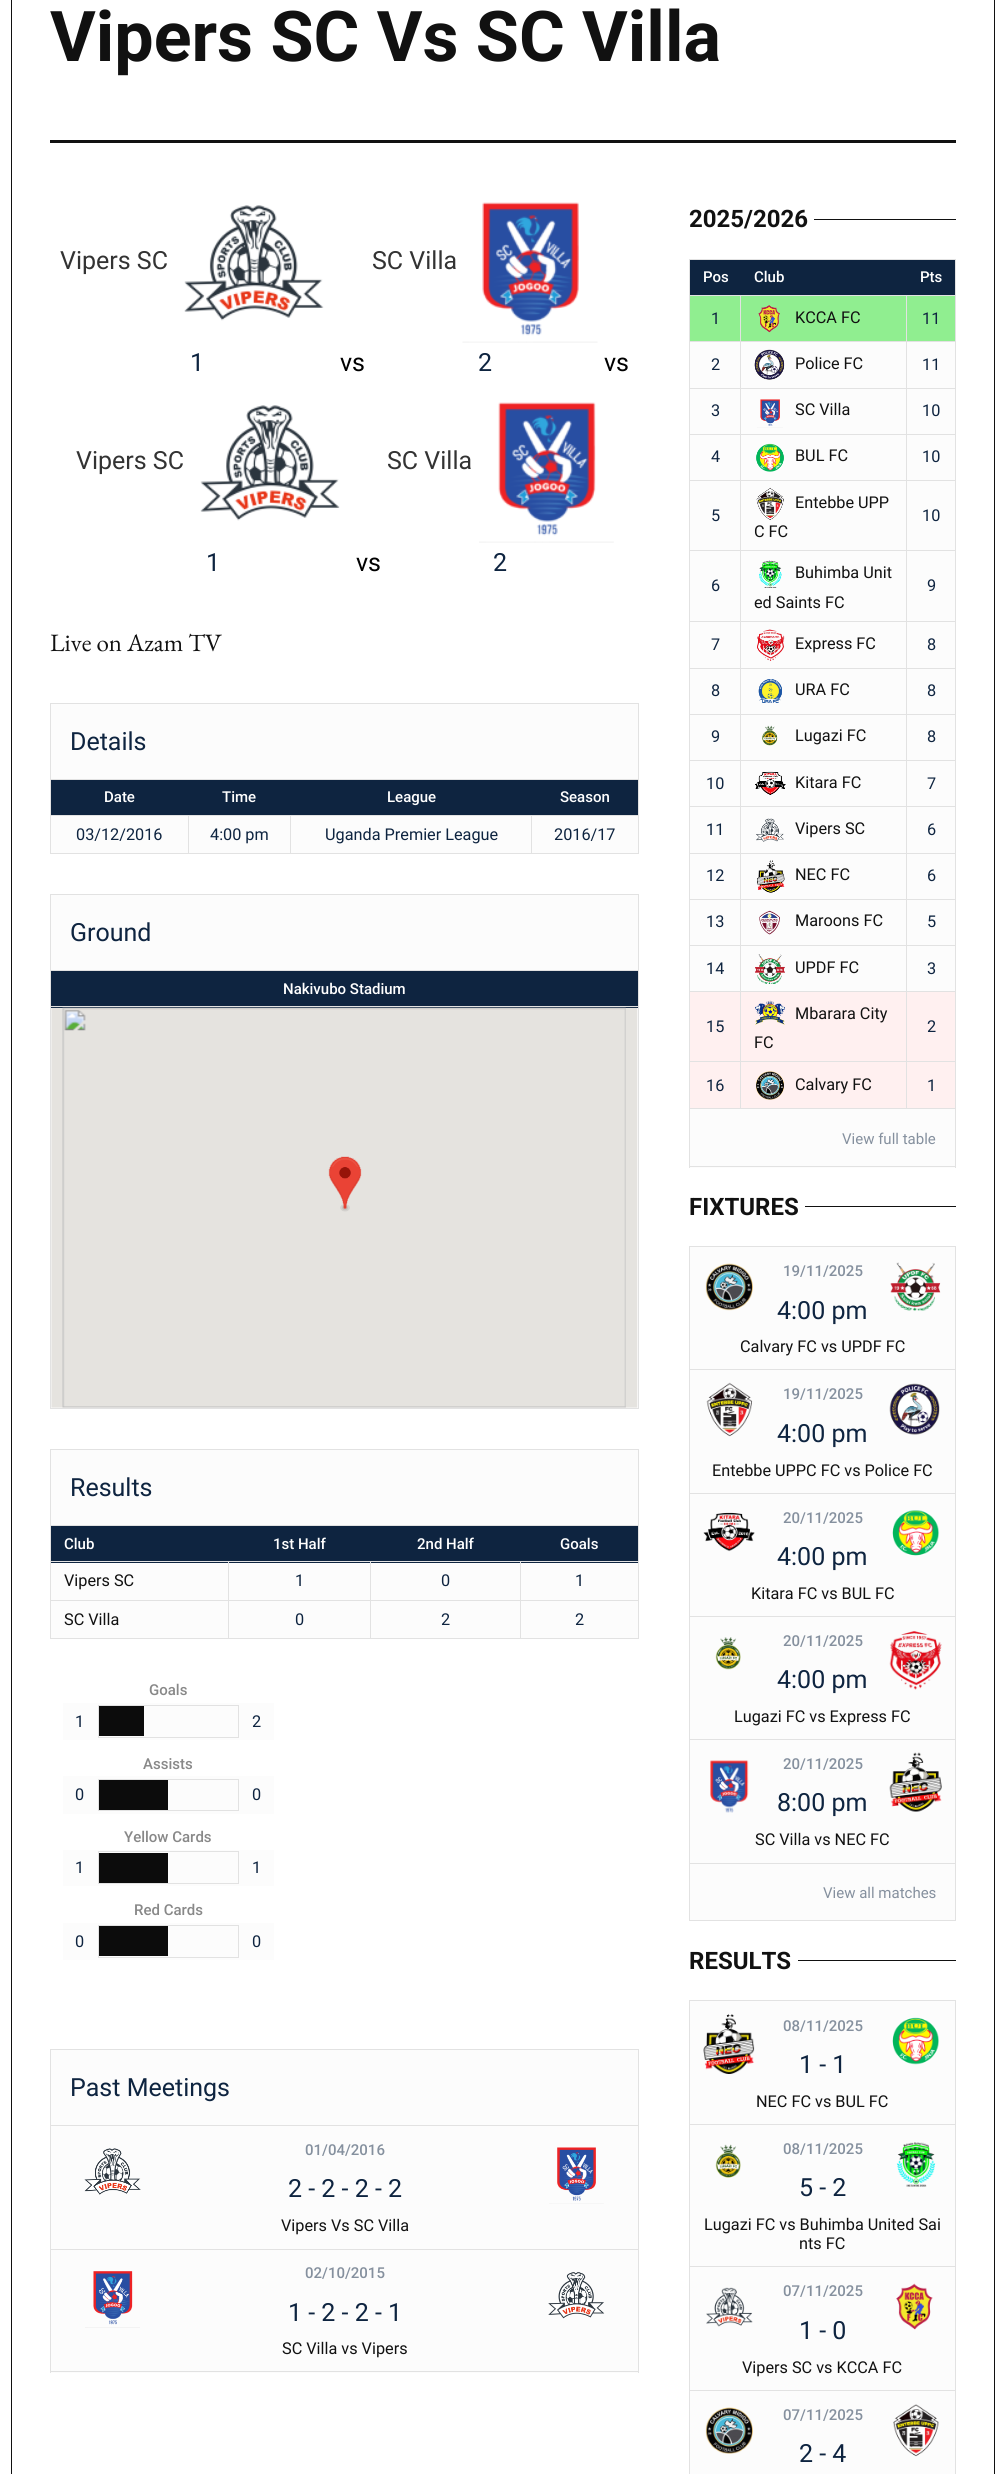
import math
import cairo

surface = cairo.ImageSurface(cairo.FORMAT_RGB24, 1006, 2474)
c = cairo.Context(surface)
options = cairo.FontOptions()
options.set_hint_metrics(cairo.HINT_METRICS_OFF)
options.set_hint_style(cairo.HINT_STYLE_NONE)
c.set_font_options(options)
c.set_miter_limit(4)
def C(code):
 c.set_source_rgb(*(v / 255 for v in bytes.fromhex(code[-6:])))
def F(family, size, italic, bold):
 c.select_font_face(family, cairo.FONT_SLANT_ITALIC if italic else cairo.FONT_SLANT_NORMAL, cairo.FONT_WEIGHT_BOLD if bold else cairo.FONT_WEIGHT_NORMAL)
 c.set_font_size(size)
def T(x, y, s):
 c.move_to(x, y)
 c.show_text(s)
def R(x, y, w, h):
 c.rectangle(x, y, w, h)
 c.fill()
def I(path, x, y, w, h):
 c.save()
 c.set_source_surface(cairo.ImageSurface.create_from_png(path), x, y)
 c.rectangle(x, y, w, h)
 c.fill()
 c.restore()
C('ffffff')
c.paint()
C('fcfcfc')
R(51,2050,587,75)
C('e2e2e2')
R(50,2049,589,1)
R(638,2049,1,76)
R(50,2049,1,76)
C('111111')
R(814,219,142,1)
R(805,1206,151,1)
R(798,1960,158,1)
c.rectangle(11.5,-.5,983,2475)
c.set_line_width(1)
c.stroke()
R(50,140,906,3)
F('Roboto',70,0,1)
T(50,61,'Vipers SC Vs SC Villa')
F('Roboto',25,0,0)
C('333333')
T(60,269,'Vipers SC')
I('1.png',184,205,140,116)
C('0e2440')
T(190,371,'1')
C('000000')
T(340,371,'vs')
C('333333')
T(372,269,'SC Villa')
I('2.png',462,202,136,141)
C('0e2440')
T(478,371,'2')
C('000000')
T(604,371,'vs')
C('333333')
T(76,469,'Vipers SC')
I('3.png',200,405,140,116)
C('0e2440')
T(206,571,'1')
C('000000')
T(356,571,'vs')
C('333333')
T(387,469,'SC Villa')
I('4.png',479,402,135,141)
C('0e2440')
T(493,571,'2')
F('EB Garamond',25,0,0)
C('111111')
T(50,651,'Live on Azam TV')
C('fcfcfc')
R(51,704,587,75)
C('e2e2e2')
R(50,703,589,1)
R(638,703,1,76)
R(50,703,1,76)
F('Roboto',25,0,0)
C('0e2440')
T(70,750,'Details')
C('fcfcfc')
R(51,816,587,37)
C('e2e2e2')
R(50,779,589,1)
R(638,779,1,75)
R(50,853,589,1)
R(50,779,1,75)
C('0e2440')
R(51,780,587,35)
F('Roboto Medium',15,0,0)
C('ffffff')
T(104,802,'Date')
T(222,802,'Time')
T(387,802,'League')
T(560,802,'Season')
C('e2e2e2')
R(531,815,108,1)
R(531,815,1,39)
R(290,815,243,1)
R(290,815,1,39)
R(188,815,103,1)
R(188,815,1,39)
R(50,815,139,1)
F('Roboto',16.25,0,0)
C('0e2440')
T(76,840,'03/12/2016')
T(210,840,'4:00 pm')
T(325,840,'Uganda Premier League')
T(554,840,'2016/17')
C('fcfcfc')
R(51,895,587,75)
C('e2e2e2')
R(50,894,589,1)
R(638,894,1,76)
R(50,894,1,76)
F('Roboto',25,0,0)
C('0e2440')
T(70,941,'Ground')
C('fcfcfc')
R(51,1008,587,400)
C('e2e2e2')
R(50,970,589,1)
R(638,970,1,439)
R(50,1408,589,1)
R(50,970,1,439)
C('0e2440')
R(51,971,587,37)
F('Roboto Medium',15,0,0)
C('ffffff')
T(283,994,'Nakivubo Stadium')
C('e2e2e2')
R(50,1006,589,1)
I('5.png',51,1007,587,401)
I('6.png',328,1156,34,56)
C('fcfcfc')
R(51,1450,587,75)
C('e2e2e2')
R(50,1449,589,1)
R(638,1449,1,76)
R(50,1449,1,76)
F('Roboto',25,0,0)
C('0e2440')
T(70,1496,'Results')
C('fcfcfc')
R(51,1563,587,75)
C('e2e2e2')
R(50,1525,589,1)
R(638,1525,1,114)
R(50,1638,589,1)
R(50,1525,1,114)
C('0e2440')
R(51,1526,587,37)
F('Roboto Medium',15,0,0)
C('ffffff')
T(64,1549,'Club')
T(273,1549,'1st Half')
T(417,1549,'2nd Half')
T(560,1549,'Goals')
C('e2e2e2')
R(520,1561,119,1)
R(520,1600,119,1)
R(520,1600,1,39)
R(370,1600,151,1)
R(520,1561,1,40)
R(370,1561,151,1)
R(370,1600,1,39)
R(228,1600,143,1)
R(370,1561,1,40)
R(228,1561,143,1)
R(228,1600,1,39)
R(50,1600,179,1)
R(228,1561,1,40)
R(50,1561,179,1)
F('Roboto',16.25,0,0)
C('111111')
T(64,1586,'Vipers SC')
C('0e2440')
T(295,1586,'1')
T(441,1586,'0')
T(575,1586,'1')
C('111111')
T(64,1625,'SC Villa')
C('0e2440')
T(295,1625,'0')
T(441,1625,'2')
T(575,1625,'2')
F('Roboto Medium',15,0,0)
C('888888')
T(149,1695,'Goals')
C('fcfcfc')
R(63,1703,211,37)
F('Roboto',16.25,0,0)
C('0e2440')
T(75,1727,'1')
c.rectangle(98.5,1705.5,140,32)
C('e2e2e2')
c.stroke()
C('0c0c0c')
R(99,1706,45,30)
C('0e2440')
T(252,1727,'2')
F('Roboto Medium',15,0,0)
C('888888')
T(143,1769,'Assists')
C('fcfcfc')
R(63,1776,211,38)
F('Roboto',16.25,0,0)
C('0e2440')
T(75,1800,'0')
c.rectangle(98.5,1779.5,140,31)
C('e2e2e2')
c.stroke()
C('0c0c0c')
R(99,1780,69,30)
C('0e2440')
T(252,1800,'0')
F('Roboto Medium',15,0,0)
C('888888')
T(124,1842,'Yellow Cards')
C('fcfcfc')
R(63,1850,211,36)
F('Roboto',16.25,0,0)
C('0e2440')
T(75,1873,'1')
c.rectangle(98.5,1851.5,140,32)
C('e2e2e2')
c.stroke()
C('0c0c0c')
R(99,1853,69,30)
C('0e2440')
T(252,1873,'1')
F('Roboto Medium',15,0,0)
C('888888')
T(134,1915,'Red Cards')
C('fcfcfc')
R(63,1923,211,37)
F('Roboto',16.25,0,0)
C('0e2440')
T(75,1947,'0')
c.rectangle(98.5,1925.5,140,32)
C('e2e2e2')
c.stroke()
C('0c0c0c')
R(99,1926,69,30)
C('0e2440')
T(252,1947,'0')
F('Roboto',25,0,0)
T(70,2096,'Past Meetings')
C('fcfcfc')
R(51,2126,587,247)
C('e2e2e2')
R(50,2125,589,1)
R(638,2125,1,248)
R(50,2371,589,1)
R(50,2125,1,248)
I('7.png',84,2148,57,47)
F('Roboto Medium',15,0,0)
C('85909e')
T(305,2155,'01/04/2016')
I('8.png',549,2147,55,57)
F('Roboto',25,0,0)
C('0e2440')
T(288,2197,'2 - 2 - 2 - 2')
F('Roboto',16.25,0,0)
C('111111')
T(281,2231,'Vipers Vs SC Villa')
C('e2e2e2')
R(50,2249,589,1)
I('9.png',85,2271,55,57)
F('Roboto Medium',15,0,0)
C('85909e')
T(305,2278,'02/10/2015')
I('10.png',548,2272,57,47)
F('Roboto',25,0,0)
C('0e2440')
T(288,2321,'1 - 2 - 2 - 1')
F('Roboto',16.25,0,0)
C('111111')
T(282,2354,'SC Villa vs Vipers')
F('Roboto',24,0,1)
T(689,227,'2025/2026')
C('fcfcfc')
R(690,342,265,649)
C('e2e2e2')
R(689,259,267,1)
R(955,259,1,909)
R(689,1108,267,1)
R(689,259,1,850)
C('0e2440')
R(690,260,265,35)
F('Roboto Medium',15,0,0)
C('ffffff')
T(703,282,'Pos')
T(754,282,'Club')
T(920,282,'Pts')
C('90ee90')
R(690,296,50,45)
C('e2e2e2')
R(906,295,50,1)
C('90ee90')
R(741,296,214,45)
C('e2e2e2')
R(906,341,50,1)
R(906,388,50,1)
R(906,434,50,1)
R(906,480,50,1)
R(906,550,50,1)
R(906,621,50,1)
R(906,668,50,1)
R(906,714,50,1)
R(906,760,50,1)
R(906,806,50,1)
R(906,853,50,1)
R(906,899,50,1)
R(906,945,50,1)
C('fff0f0')
R(741,992,214,71)
C('e2e2e2')
R(906,991,50,1)
R(906,1061,50,1)
C('fff0f0')
R(741,1063,214,45)
C('e2e2e2')
R(906,1061,1,48)
R(740,1061,168,1)
R(906,991,1,72)
R(740,991,168,1)
R(906,945,1,48)
R(740,945,168,1)
R(906,899,1,47)
R(740,899,168,1)
R(906,853,1,47)
R(740,853,168,1)
R(906,806,1,48)
R(740,806,168,1)
R(906,760,1,48)
R(740,760,168,1)
R(906,714,1,47)
R(740,714,168,1)
R(906,668,1,47)
R(740,668,168,1)
R(906,621,1,48)
R(740,621,168,1)
R(906,550,1,73)
R(740,550,168,1)
R(906,480,1,71)
R(740,480,168,1)
R(906,434,1,47)
R(740,434,168,1)
R(906,388,1,47)
R(740,388,168,1)
R(906,341,1,48)
R(740,341,168,1)
R(906,295,1,48)
R(740,295,168,1)
C('fff0f0')
R(690,992,50,116)
C('e2e2e2')
R(740,1061,1,48)
R(689,1061,52,1)
R(740,991,1,72)
R(689,991,52,1)
R(740,945,1,48)
R(689,945,52,1)
R(740,899,1,47)
R(689,899,52,1)
R(740,853,1,47)
R(689,853,52,1)
R(740,806,1,48)
R(689,806,52,1)
R(740,760,1,48)
R(689,760,52,1)
R(740,714,1,47)
R(689,714,52,1)
R(740,668,1,47)
R(689,668,52,1)
R(740,621,1,48)
R(689,621,52,1)
R(740,550,1,73)
R(689,550,52,1)
R(740,480,1,71)
R(689,480,52,1)
R(740,434,1,47)
R(689,434,52,1)
R(740,388,1,47)
R(689,388,52,1)
R(740,341,1,48)
R(689,341,52,1)
R(740,295,1,48)
R(689,295,52,1)
F('Roboto',16.25,0,0)
C('0e2440')
T(711,324,'1')
I('11.png',758,305,22,28)
C('111111')
T(795,323,'KCCA FC')
C('0e2440')
T(922,324,'11')
T(711,370,'2')
I('12.png',754,349,31,31)
C('111111')
T(795,369,'Police FC')
C('0e2440')
T(922,370,'11')
T(711,416,'3')
I('13.png',757,399,26,29)
C('111111')
T(795,415,'SC Villa')
C('0e2440')
T(922,416,'10')
T(711,462,'4')
I('14.png',756,443,28,29)
C('111111')
T(795,461,'BUL FC')
C('0e2440')
T(922,462,'10')
T(711,521,'5')
I('15.png',756,487,28,33)
C('111111')
T(795,508,'Entebbe UPP')
T(754,537,'C FC')
C('0e2440')
T(922,521,'10')
T(711,591,'6')
I('16.png',759,560,23,28)
C('111111')
T(795,578,'Buhimba Unit')
T(754,608,'ed Saints FC')
C('0e2440')
T(927,591,'9')
T(711,650,'7')
I('17.png',757,629,28,32)
C('111111')
T(795,649,'Express FC')
C('0e2440')
T(927,650,'8')
T(711,696,'8')
I('18.png',758,679,24,24)
C('111111')
T(795,695,'URA FC')
C('0e2440')
T(927,696,'8')
T(711,742,'9')
I('19.png',762,725,16,21)
C('111111')
T(795,741,'Lugazi FC')
C('0e2440')
T(927,742,'8')
T(706,789,'10')
I('20.png',755,771,31,24)
C('111111')
T(795,788,'Kitara FC')
C('0e2440')
T(927,789,'7')
T(706,835,'11')
I('21.png',756,818,28,24)
C('111111')
T(795,834,'Vipers SC')
C('0e2440')
T(927,835,'6')
T(706,881,'12')
I('22.png',757,860,28,33)
C('111111')
T(795,880,'NEC FC')
C('0e2440')
T(927,881,'6')
T(706,927,'13')
I('23.png',759,910,21,25)
C('111111')
T(795,926,'Maroons FC')
C('0e2440')
T(927,927,'5')
T(706,974,'14')
I('24.png',755,954,30,30)
C('111111')
T(795,973,'UPDF FC')
C('0e2440')
T(927,974,'3')
T(706,1032,'15')
I('25.png',755,1000,30,25)
C('111111')
T(795,1019,'Mbarara City')
T(754,1048,'FC')
C('0e2440')
T(927,1032,'2')
T(706,1091,'16')
I('26.png',756,1071,28,29)
C('111111')
T(795,1090,'Calvary FC')
C('0e2440')
T(927,1091,'1')
C('fcfcfc')
R(690,1109,265,59)
C('e2e2e2')
R(689,1166,267,1)
R(689,1109,1,59)
F('Roboto',15,0,0)
C('85909e')
T(842,1144,'View full table')
F('Roboto',24,0,1)
C('111111')
T(689,1215,'FIXTURES')
C('fcfcfc')
R(690,1247,265,616)
C('e2e2e2')
R(689,1246,267,1)
R(955,1246,1,675)
R(689,1863,267,1)
R(689,1246,1,618)
I('27.png',705,1263,48,48)
F('Roboto Medium',15,0,0)
C('85909e')
T(783,1276,'19/11/2025')
I('28.png',890,1262,51,49)
F('Roboto',25,0,0)
C('0e2440')
T(777,1319,'4:00 pm')
F('Roboto',16.25,0,0)
C('111111')
T(740,1352,'Calvary FC vs UPDF FC')
C('e2e2e2')
R(689,1369,267,1)
I('29.png',706,1382,47,55)
F('Roboto Medium',15,0,0)
C('85909e')
T(783,1399,'19/11/2025')
I('30.png',889,1383,51,52)
F('Roboto',25,0,0)
C('0e2440')
T(777,1442,'4:00 pm')
F('Roboto',16.25,0,0)
C('111111')
T(712,1476,'Entebbe UPPC FC vs Police FC')
C('e2e2e2')
R(689,1493,267,1)
I('31.png',703,1512,52,40)
F('Roboto Medium',15,0,0)
C('85909e')
T(783,1523,'20/11/2025')
I('32.png',892,1510,48,46)
F('Roboto',25,0,0)
C('0e2440')
T(777,1565,'4:00 pm')
F('Roboto',16.25,0,0)
C('111111')
T(751,1599,'Kitara FC vs BUL FC')
C('e2e2e2')
R(689,1616,267,1)
I('33.png',715,1637,26,33)
F('Roboto Medium',15,0,0)
C('85909e')
T(783,1646,'20/11/2025')
I('34.png',889,1631,53,59)
F('Roboto',25,0,0)
C('0e2440')
T(777,1688,'4:00 pm')
F('Roboto',16.25,0,0)
C('111111')
T(734,1722,'Lugazi FC vs Express FC')
C('e2e2e2')
R(689,1739,267,1)
I('35.png',710,1760,39,53)
F('Roboto Medium',15,0,0)
C('85909e')
T(783,1769,'20/11/2025')
I('36.png',889,1752,53,60)
F('Roboto',25,0,0)
C('0e2440')
T(777,1811,'8:00 pm')
F('Roboto',16.25,0,0)
C('111111')
T(755,1845,'SC Villa vs NEC FC')
C('fcfcfc')
R(690,1864,265,56)
C('e2e2e2')
R(689,1920,267,1)
R(689,1864,1,57)
F('Roboto',15,0,0)
C('85909e')
T(823,1898,'View all matches')
F('Roboto',24,0,1)
C('111111')
T(689,1969,'RESULTS')
C('fcfcfc')
R(690,2001,265,473)
C('e2e2e2')
R(689,2000,267,1)
R(955,2000,1,474)
R(689,2000,1,474)
I('37.png',703,2014,52,60)
F('Roboto Medium',15,0,0)
C('85909e')
T(783,2031,'08/11/2025')
I('38.png',892,2017,48,48)
F('Roboto',25,0,0)
C('0e2440')
T(799,2073,'1 - 1')
F('Roboto',16.25,0,0)
C('111111')
T(756,2107,'NEC FC vs BUL FC')
C('e2e2e2')
R(689,2124,267,1)
I('39.png',715,2144,26,34)
F('Roboto Medium',15,0,0)
C('85909e')
T(783,2154,'08/11/2025')
I('40.png',896,2142,40,45)
F('Roboto',25,0,0)
C('0e2440')
T(799,2196,'5 - 2')
F('Roboto',16.25,0,0)
C('111111')
T(704,2230,'Lugazi FC vs Buhimba United Sai')
T(799,2249,'nts FC')
C('e2e2e2')
R(689,2266,267,1)
I('41.png',706,2287,47,40)
F('Roboto Medium',15,0,0)
C('85909e')
T(783,2296,'07/11/2025')
I('42.png',896,2283,37,47)
F('Roboto',25,0,0)
C('0e2440')
T(799,2339,'1 - 0')
F('Roboto',16.25,0,0)
C('111111')
T(742,2373,'Vipers SC vs KCCA FC')
C('e2e2e2')
R(689,2390,267,1)
I('43.png',705,2407,48,47)
F('Roboto Medium',15,0,0)
C('85909e')
T(783,2420,'07/11/2025')
I('44.png',893,2404,46,53)
F('Roboto',25,0,0)
C('0e2440')
T(799,2462,'2 - 4')
surface.write_to_png('o.png')
